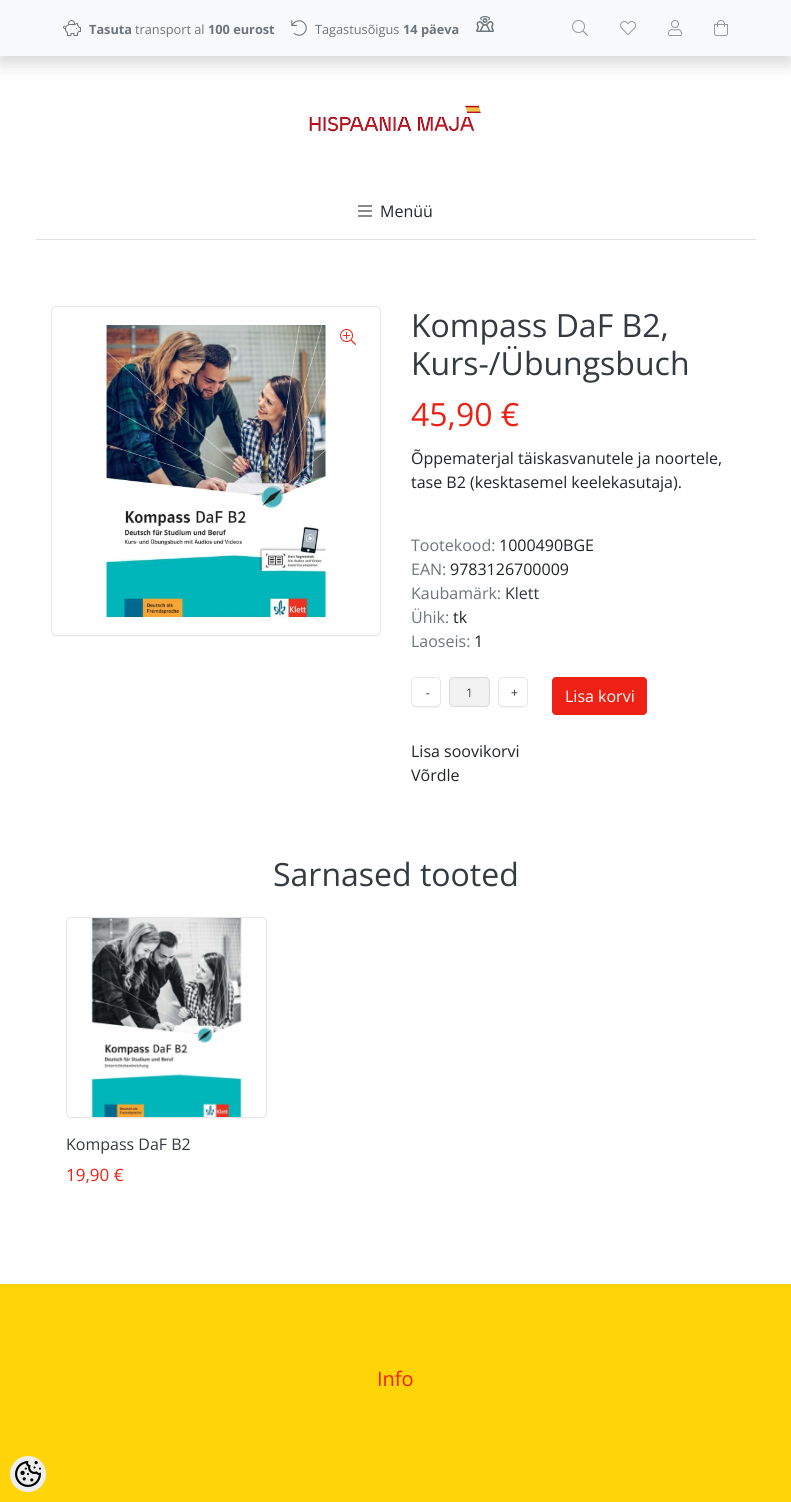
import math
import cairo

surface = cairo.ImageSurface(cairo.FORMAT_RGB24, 791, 1502)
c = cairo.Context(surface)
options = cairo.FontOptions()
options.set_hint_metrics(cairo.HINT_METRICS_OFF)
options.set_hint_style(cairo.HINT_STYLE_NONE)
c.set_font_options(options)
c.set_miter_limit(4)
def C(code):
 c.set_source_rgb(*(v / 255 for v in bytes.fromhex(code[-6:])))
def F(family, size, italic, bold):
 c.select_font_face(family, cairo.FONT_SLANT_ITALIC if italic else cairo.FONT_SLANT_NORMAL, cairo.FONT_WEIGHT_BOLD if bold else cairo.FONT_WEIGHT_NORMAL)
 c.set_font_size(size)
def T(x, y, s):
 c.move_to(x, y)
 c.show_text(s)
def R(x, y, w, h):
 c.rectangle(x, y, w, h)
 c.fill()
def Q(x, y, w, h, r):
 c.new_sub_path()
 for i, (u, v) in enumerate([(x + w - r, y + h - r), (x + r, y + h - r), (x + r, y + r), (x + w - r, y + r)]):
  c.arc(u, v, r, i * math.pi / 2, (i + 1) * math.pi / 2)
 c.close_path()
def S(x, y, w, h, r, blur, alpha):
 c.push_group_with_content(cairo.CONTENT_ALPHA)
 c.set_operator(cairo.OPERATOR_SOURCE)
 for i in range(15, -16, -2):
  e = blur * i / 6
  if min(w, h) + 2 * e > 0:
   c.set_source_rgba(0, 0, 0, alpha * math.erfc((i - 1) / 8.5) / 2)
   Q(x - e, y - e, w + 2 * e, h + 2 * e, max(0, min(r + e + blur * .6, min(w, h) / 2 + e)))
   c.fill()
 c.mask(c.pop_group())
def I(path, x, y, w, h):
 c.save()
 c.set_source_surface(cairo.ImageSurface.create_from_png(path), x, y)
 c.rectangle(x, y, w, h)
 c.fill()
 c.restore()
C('ffffff')
c.paint()
C('000000')
S(0,8,791,56,0,8,.15)
C('f8f9fa')
R(0,0,791,56)
I('1.png',63,20,19,16)
F('Open Sans',12.75,0,1)
C('6c757d')
T(89,34,'Tasuta')
F('Open Sans',12.75,0,0)
T(135,34,'transport al')
F('Open Sans',12.75,0,1)
T(208,34,'100 eurost')
I('2.png',291,20,16,16)
F('Open Sans',12.75,0,0)
T(315,34,'Tagastusõigus')
F('Open Sans',12.75,0,1)
T(403,34,'14 päeva')
I('3.png',476,16,18,16)
I('4.png',572,20,16,16)
I('5.png',620,21,16,14)
I('6.png',668,20,14,16)
I('7.png',714,20,14,16)
I('8.png',309,105,172,27)
C('e1e1e1')
R(36,239,720,1)
I('9.png',358,205,14,12)
F('Open Sans',16,0,0)
C('212529')
T(380,217,'Menüü')
C('f7f7f7')
c.new_path()
c.move_to(51,631)
c.curve_to(51,634,53,637,56,637)
c.line_to(376,637)
c.curve_to(379,637,381,634,381,631)
c.curve_to(381,634,379,636,376,636)
c.line_to(56,636)
c.curve_to(53,636,51,634,51,631)
c.close_path()
c.fill()
Q(51.5,306.5,329,329,4.5)
C('e6e6e6')
c.set_line_width(1)
c.stroke()
I('10.png',104,324,222,295)
I('11.png',340,329,16,16)
F('Open Sans',32,0,0)
C('343a40')
T(411,337,'Kompass DaF B2,')
T(411,375,'Kurs-/Übungsbuch')
C('ed2114')
T(411,426,'45,90 €')
F('Open Sans',16,0,0)
C('212529')
T(411,464,'Õppematerjal täiskasvanutele ja noortele,')
T(411,488,'tase B2 (kesktasemel keelekasutaja).')
C('6c757d')
T(411,551,'Tootekood:')
C('212529')
T(499,551,'1000490BGE')
C('6c757d')
T(411,575,'EAN:')
C('212529')
T(450,575,'9783126700009')
C('6c757d')
T(411,599,'Kaubamärk:')
C('343a40')
T(505,599,'Klett')
C('6c757d')
T(411,623,'Ühik:')
C('212529')
T(453,623,'tk')
C('6c757d')
T(411,647,'Laoseis:')
C('212529')
T(474,647,'1')
C('f2f2f2')
c.new_path()
c.move_to(411,702)
c.curve_to(411,708,414.5,708,419.5,708)
c.line_to(432.5,708)
c.curve_to(437.5,708,441,708,441,702)
c.curve_to(441,705,439,707,436,707)
c.line_to(416,707)
c.curve_to(413,707,411,705,411,702)
c.close_path()
c.fill()
I('12.png',426,693,4,2)
Q(411.5,677.5,29,29,4.5)
C('e6e6e6')
c.stroke()
C('f2f2f2')
Q(449.5,677.5,40,29,4.5)
c.fill_preserve()
C('d9d9d9')
c.stroke()
F('Open Sans',12,0,0)
C('4c4c4c')
T(466,697,'1')
C('f2f2f2')
c.new_path()
c.move_to(498,702)
c.curve_to(498,708,501.5,708,506.5,708)
c.line_to(519.5,708)
c.curve_to(524.5,708,528,708,528,702)
c.curve_to(528,705,526,707,523,707)
c.line_to(503,707)
c.curve_to(500,707,498,705,498,702)
c.close_path()
c.fill()
I('13.png',511,689,7,7)
Q(498.5,677.5,29,29,4.5)
C('e6e6e6')
c.stroke()
C('ed2114')
Q(552.5,677.5,94,37,3.5)
c.fill_preserve()
c.stroke()
F('Open Sans',16,0,0)
C('ffffff')
T(565,702,'Lisa korvi')
C('212529')
T(411,757,'Lisa soovikorvi')
T(411,781,'Võrdle')
F('Open Sans',32,0,0)
C('343a40')
T(273,886,'Sarnased tooted')
I('14.png',91,918,152,199)
C('f7f7f7')
c.new_path()
c.move_to(66,1113)
c.line_to(66,1114)
c.curve_to(66,1117,68,1119,71,1119)
c.line_to(262,1119)
c.curve_to(265,1119,267,1117,267,1114)
c.line_to(267,1113)
c.curve_to(267,1116,265,1118,262,1118)
c.line_to(71,1118)
c.curve_to(68,1118,66,1116,66,1113)
c.close_path()
c.fill()
Q(66.5,917.5,200,200,4.5)
C('e6e6e6')
c.stroke()
F('Open Sans',16,0,0)
C('343a40')
T(66,1150,'Kompass DaF B2')
F('Open Sans',17,0,0)
C('ed2114')
T(66,1181,'19,90 €')
C('ffd409')
R(0,1284,791,218)
F('Open Sans',20,0,0)
C('ed2114')
T(377,1386,'Info')
C('eeeeee')
c.new_path()
c.arc(28,1474,18,0,2 * math.pi)
c.fill()
I('15.png',15,1461,26,26)
surface.write_to_png('o.png')
